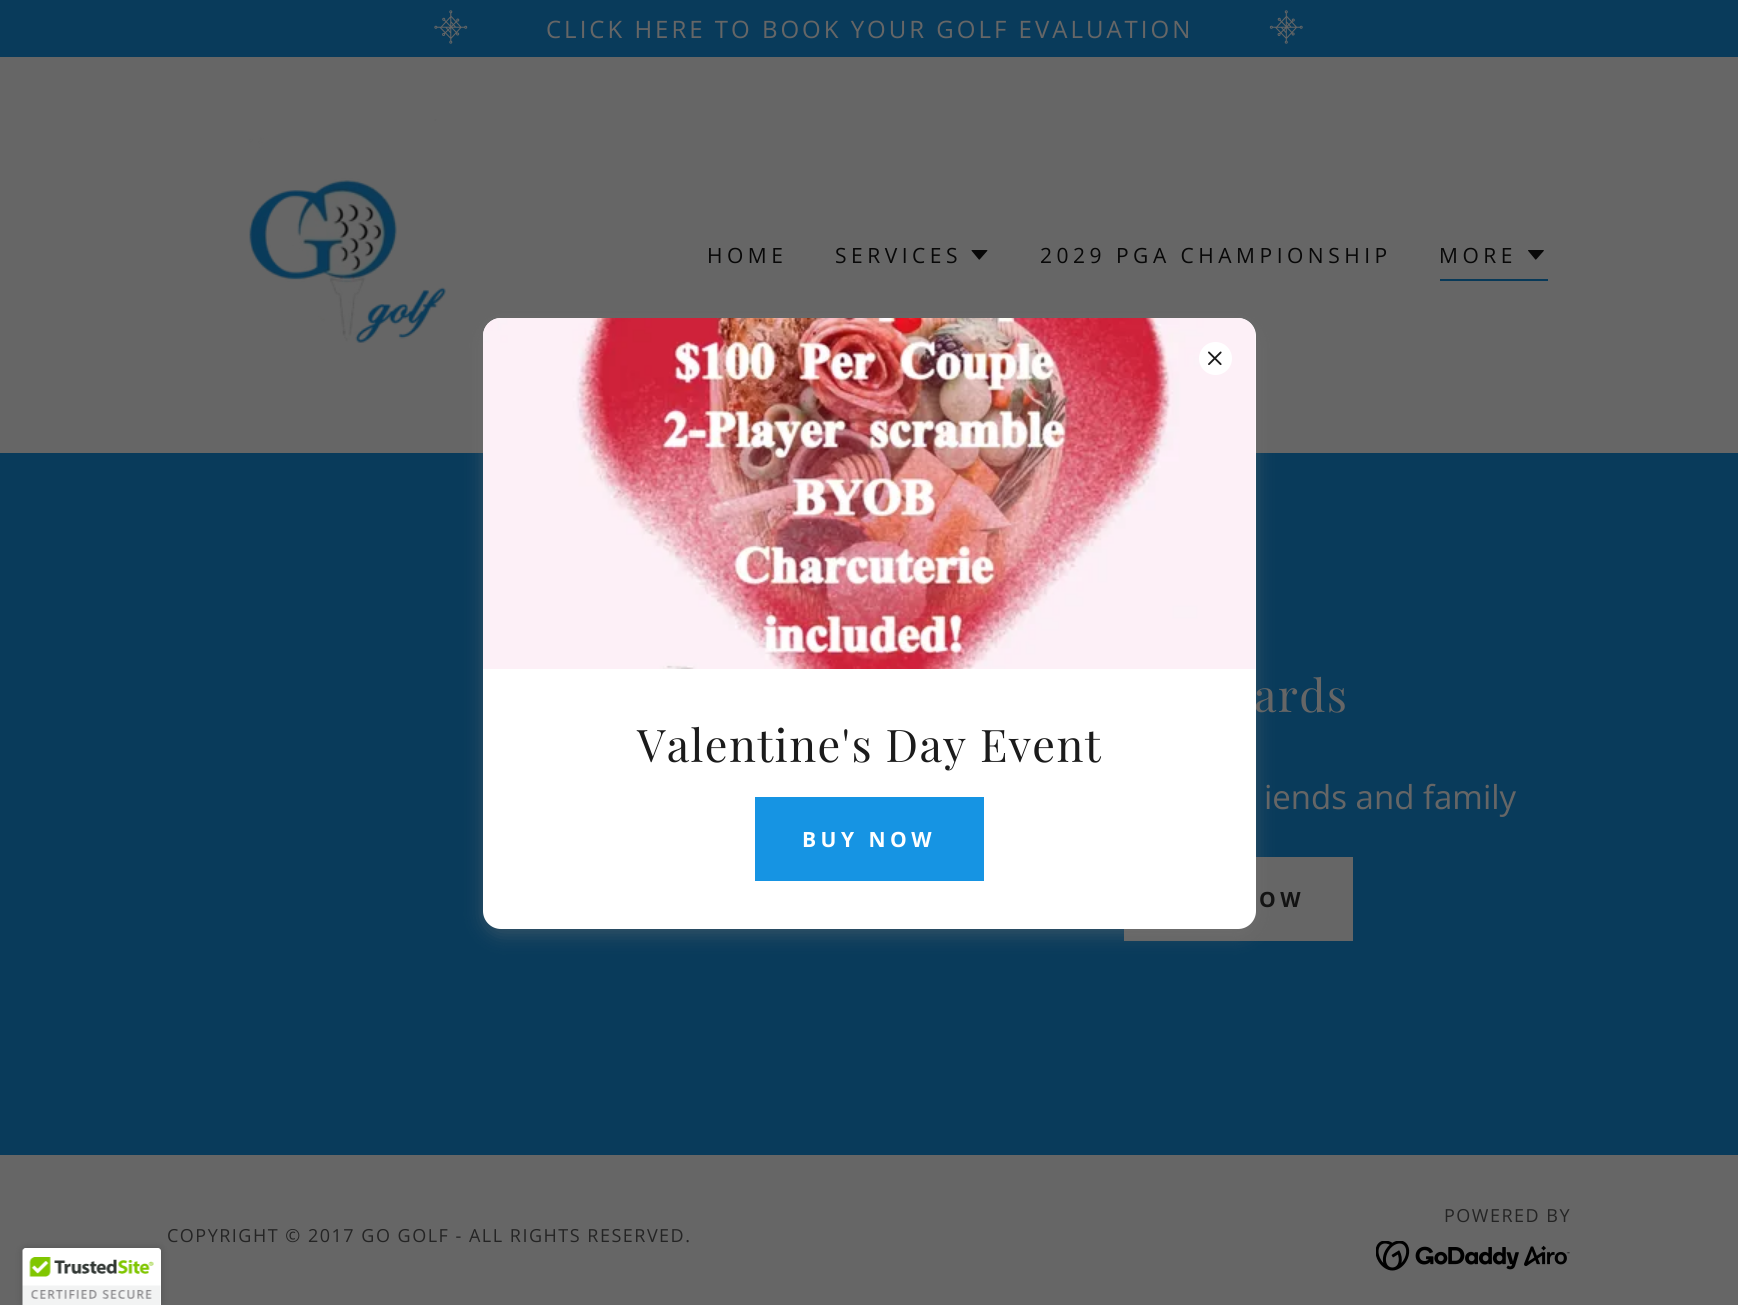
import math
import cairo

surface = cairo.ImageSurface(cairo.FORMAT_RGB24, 1738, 1305)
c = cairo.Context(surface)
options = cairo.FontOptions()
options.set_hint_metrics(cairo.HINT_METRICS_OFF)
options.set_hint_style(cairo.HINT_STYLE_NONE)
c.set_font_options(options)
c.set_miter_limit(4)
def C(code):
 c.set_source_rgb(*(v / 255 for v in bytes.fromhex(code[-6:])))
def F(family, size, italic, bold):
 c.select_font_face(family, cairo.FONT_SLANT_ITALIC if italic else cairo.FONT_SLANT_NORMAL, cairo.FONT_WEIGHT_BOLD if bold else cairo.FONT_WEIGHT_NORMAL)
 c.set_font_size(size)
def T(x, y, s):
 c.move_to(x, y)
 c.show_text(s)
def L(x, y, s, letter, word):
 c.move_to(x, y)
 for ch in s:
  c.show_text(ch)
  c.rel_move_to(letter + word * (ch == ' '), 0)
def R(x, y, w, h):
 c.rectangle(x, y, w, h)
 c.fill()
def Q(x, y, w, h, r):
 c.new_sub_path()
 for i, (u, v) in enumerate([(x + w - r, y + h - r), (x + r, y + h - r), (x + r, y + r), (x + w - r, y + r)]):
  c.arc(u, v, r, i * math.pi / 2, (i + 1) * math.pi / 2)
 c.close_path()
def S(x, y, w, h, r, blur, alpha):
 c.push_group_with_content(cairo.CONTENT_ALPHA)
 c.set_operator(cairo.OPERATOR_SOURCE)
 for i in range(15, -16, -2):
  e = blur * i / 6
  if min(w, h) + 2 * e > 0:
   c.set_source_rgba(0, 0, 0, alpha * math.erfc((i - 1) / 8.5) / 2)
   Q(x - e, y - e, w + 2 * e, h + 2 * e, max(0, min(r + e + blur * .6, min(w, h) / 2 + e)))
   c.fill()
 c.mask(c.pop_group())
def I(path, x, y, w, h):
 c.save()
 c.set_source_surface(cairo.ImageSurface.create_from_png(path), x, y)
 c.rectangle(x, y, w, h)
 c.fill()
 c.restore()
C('666666')
c.paint()
C('093b5b')
R(0,0,1738,57)
I('1.png',434,10,34,34)
F('Open Sans',24,0,0)
C('666666')
L(546,38,'CLICK HERE TO BOOK YOUR GOLF EVALUATION',3,0)
I('2.png',1269,10,34,34)
I('3.png',249,119,197,224)
F('Open Sans',21,0,0)
C('080808')
L(707,263,'HOME',4.5,0)
L(835,263,'SERVICES',4.5,0)
I('4.png',971,250,17,10)
L(1040,263,'2029 PGA CHAMPIONSHIP',4.5,0)
C('083958')
R(1440,279,108,2)
C('080808')
L(1439,263,'MORE',4.5,0)
I('5.png',1528,250,16,10)
C('093b5b')
R(0,453,1738,702)
C('666666')
R(1124,857,229,84)
C('757575')
S(483,324,773,611,18,9,.4)
F('Playfair Display',45,0,0)
C('666666')
L(1254,712,'ards',1.4,0)
C('ffffff')
Q(483,318,773,611,18)
c.fill()
I('7.png',483,318,773,351)
c.arc(1215.5,358.5,16.5,0,2 * math.pi)
c.fill()
I('6.png',1208,351,14,15)
C('1b1b1b')
L(637,762,'Valentine\'s Day Event',1.4,0)
C('1694e3')
R(755,797,229,84)
F('Open Sans',21,0,1)
C('ffffff')
L(802,847,'BUY NOW',4.5,0)
F('Open Sans',33,0,0)
C('666666')
T(1264,809,'iends and family')
F('Open Sans',21,0,1)
C('131313')
L(1259,907,'OW',4.5,0)
F('Open Sans',18,0,0)
C('242424')
L(1444,1222,'POWERED BY',1.5,0)
I('8.png',1376,1241,194,30)
L(167,1242,'COPYRIGHT © 2017 GO GOLF - ALL RIGHTS RESERVED.',1.5,0)
C('000000')
S(23,1248,138,57,3,4,.2)
C('ffffff')
c.new_path()
c.move_to(26,1248)
c.line_to(158,1248)
c.curve_to(159.5,1248,161,1249.5,161,1251)
c.line_to(161,1305)
c.line_to(23,1305)
c.line_to(23,1251)
c.curve_to(23,1249.5,24.5,1248,26,1248)
c.close_path()
c.fill()
I('9.png',22,1248,139,57)
surface.write_to_png('o.png')
